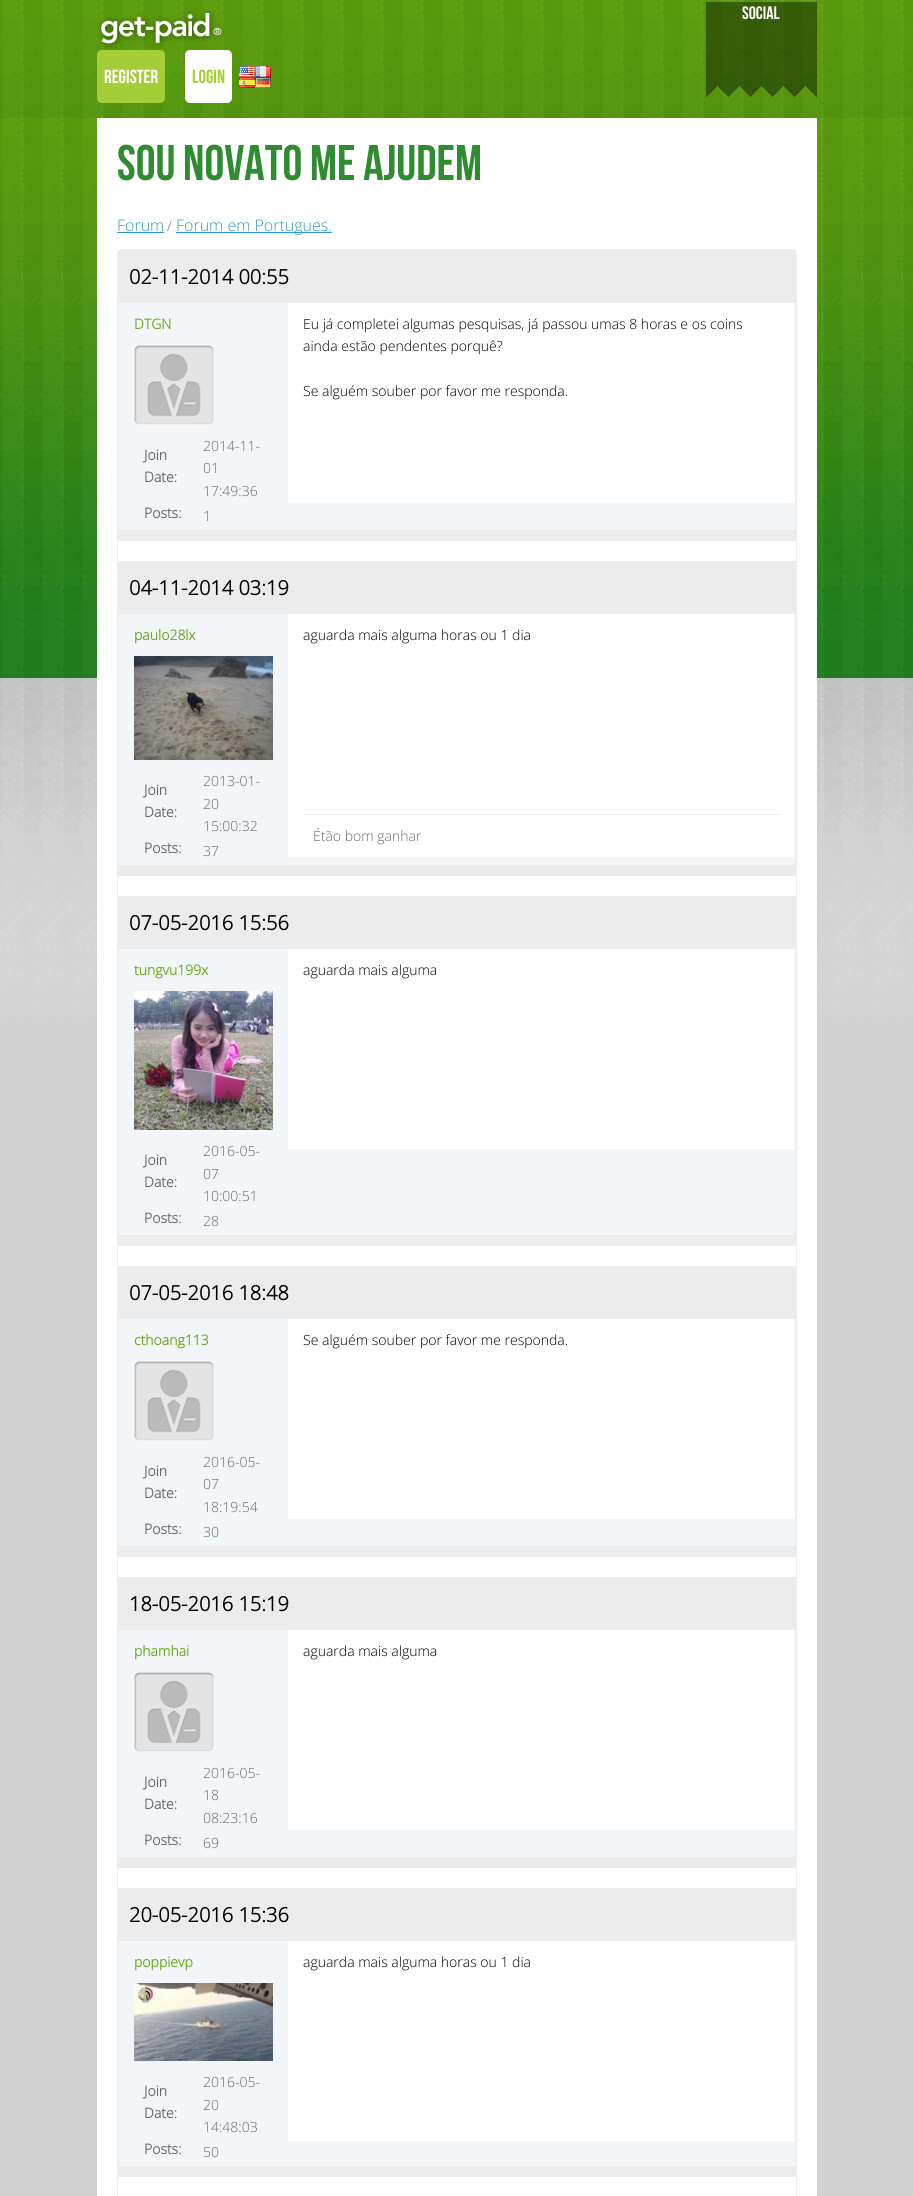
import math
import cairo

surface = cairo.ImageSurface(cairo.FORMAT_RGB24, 913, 2196)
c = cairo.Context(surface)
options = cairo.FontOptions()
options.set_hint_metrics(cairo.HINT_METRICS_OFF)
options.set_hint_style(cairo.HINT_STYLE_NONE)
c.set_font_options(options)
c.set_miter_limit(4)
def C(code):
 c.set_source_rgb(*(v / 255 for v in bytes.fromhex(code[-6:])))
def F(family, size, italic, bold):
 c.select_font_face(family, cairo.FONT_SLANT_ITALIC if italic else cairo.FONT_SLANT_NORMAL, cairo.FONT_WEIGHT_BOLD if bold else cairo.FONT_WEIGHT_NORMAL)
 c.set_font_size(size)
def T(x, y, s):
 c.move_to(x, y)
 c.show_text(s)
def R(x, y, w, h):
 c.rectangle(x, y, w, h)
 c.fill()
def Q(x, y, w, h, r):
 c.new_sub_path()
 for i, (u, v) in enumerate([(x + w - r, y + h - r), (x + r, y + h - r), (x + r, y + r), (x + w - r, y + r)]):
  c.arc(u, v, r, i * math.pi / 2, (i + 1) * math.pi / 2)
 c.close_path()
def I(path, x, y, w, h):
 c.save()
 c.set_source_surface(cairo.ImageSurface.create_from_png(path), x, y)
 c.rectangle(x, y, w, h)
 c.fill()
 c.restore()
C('ffffff')
c.paint()
I('1.png',0,0,913,118)
I('2.png',706,2,111,95)
F('Bebas Neue',18,0,0)
C('ffffff')
T(742,19,'SOCIAL')
I('3.png',98,10,127,39)
C('a4ce37')
Q(97,50,68,53,5)
c.fill()
F('Bebas Neue',19,0,0)
C('ffffff')
T(104,83,'REGISTER')
Q(185,50,47,53,5)
c.fill()
C('a4ce37')
T(192,83,'LOGIN')
I('4.png',239,66,32,22)
C('d1d1d1')
R(0,1017,913,1179)
I('5.png',0,118,913,899)
C('ffffff')
R(97,118,720,2078)
F('Bebas Neue',50,0,0)
C('308c30')
T(117,180,'Sou novato me ajudem')
F('Open Sans Light',16,0,0)
C('3097d1')
T(117,231,'Forum')
R(117,232,47,1)
F('Open Sans Light',14,0,0)
C('636b6f')
T(167,231,'/')
C('3097d1')
R(176,232,156,1)
F('Open Sans Light',16,0,0)
T(176,231,'Forum em Portugues.')
Q(117.5,249.5,679,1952,4.5)
C('eeeeee')
c.set_line_width(1)
c.stroke()
c.rectangle(118.5,250.5,677,290)
c.stroke()
C('ececec')
R(119,251,676,52)
F('Open Sans',20,0,1)
C('000000')
T(129,284,'02-11-2014 00:55')
C('f2f6f8')
R(119,303,676,227)
F('Open Sans',14,0,1)
C('6daa1e')
T(134,329,'DTGN')
I('6.png',134,345,80,80)
C('636b6f')
T(144,460,'Join')
T(144,482,'Date:')
F('Open Sans Light',14,0,0)
T(203,451,'2014-11-')
T(203,473,'01')
T(203,496,'17:49:36')
F('Open Sans',14,0,1)
T(144,518,'Posts:')
F('Open Sans Light',14,0,0)
T(203,521,'1')
C('ffffff')
R(288,303,507,200)
C('000000')
T(303,329,'Eu já completei algumas pesquisas, já passou umas 8 horas e os coins')
T(303,351,'ainda estão pendentes porquê?')
T(303,396,'Se alguém souber por favor me responda.')
C('ececec')
R(119,530,676,10)
c.rectangle(118.5,561.5,677,314)
C('eeeeee')
c.stroke()
C('ececec')
R(119,562,676,52)
F('Open Sans',20,0,1)
C('000000')
T(129,595,'04-11-2014 03:19')
C('f2f6f8')
R(119,614,676,251)
F('Open Sans',14,0,1)
C('6daa1e')
T(134,640,'paulo28lx')
I('7.png',134,656,139,104)
C('636b6f')
T(144,795,'Join')
T(144,817,'Date:')
F('Open Sans Light',14,0,0)
T(203,786,'2013-01-')
T(203,809,'20')
T(203,831,'15:00:32')
F('Open Sans',14,0,1)
T(144,853,'Posts:')
F('Open Sans Light',14,0,0)
T(203,856,'37')
C('ffffff')
R(288,614,507,243)
C('000000')
T(303,640,'aguarda mais alguma horas ou 1 dia')
C('eeeeee')
R(303,814,477,1)
C('636b6f')
T(313,841,'Étão bom ganhar')
C('ececec')
R(119,865,676,10)
c.rectangle(118.5,896.5,677,349)
C('eeeeee')
c.stroke()
C('ececec')
R(119,897,676,52)
F('Open Sans',20,0,1)
C('000000')
T(129,930,'07-05-2016 15:56')
C('f2f6f8')
R(119,949,676,286)
F('Open Sans',14,0,1)
C('6daa1e')
T(134,975,'tungvu199x')
I('8.png',134,991,139,139)
C('636b6f')
T(144,1165,'Join')
T(144,1187,'Date:')
F('Open Sans Light',14,0,0)
T(203,1156,'2016-05-')
T(203,1179,'07')
T(203,1201,'10:00:51')
F('Open Sans',14,0,1)
T(144,1223,'Posts:')
F('Open Sans Light',14,0,0)
T(203,1226,'28')
C('ffffff')
R(288,949,507,200)
C('000000')
T(303,975,'aguarda mais alguma')
C('ececec')
R(119,1235,676,10)
c.rectangle(118.5,1266.5,677,290)
C('eeeeee')
c.stroke()
C('ececec')
R(119,1267,676,52)
F('Open Sans',20,0,1)
C('000000')
T(129,1300,'07-05-2016 18:48')
C('f2f6f8')
R(119,1319,676,227)
F('Open Sans',14,0,1)
C('6daa1e')
T(134,1345,'cthoang113')
I('6.png',134,1361,80,80)
C('636b6f')
T(144,1476,'Join')
T(144,1498,'Date:')
F('Open Sans Light',14,0,0)
T(203,1467,'2016-05-')
T(203,1489,'07')
T(203,1512,'18:19:54')
F('Open Sans',14,0,1)
T(144,1534,'Posts:')
F('Open Sans Light',14,0,0)
T(203,1537,'30')
C('ffffff')
R(288,1319,507,200)
C('000000')
T(303,1345,'Se alguém souber por favor me responda.')
C('ececec')
R(119,1546,676,10)
c.rectangle(118.5,1577.5,677,290)
C('eeeeee')
c.stroke()
C('ececec')
R(119,1578,676,52)
F('Open Sans',20,0,1)
C('000000')
T(129,1611,'18-05-2016 15:19')
C('f2f6f8')
R(119,1630,676,227)
F('Open Sans',14,0,1)
C('6daa1e')
T(134,1656,'phamhai')
I('6.png',134,1672,80,80)
C('636b6f')
T(144,1787,'Join')
T(144,1809,'Date:')
F('Open Sans Light',14,0,0)
T(203,1778,'2016-05-')
T(203,1800,'18')
T(203,1823,'08:23:16')
F('Open Sans',14,0,1)
T(144,1845,'Posts:')
F('Open Sans Light',14,0,0)
T(203,1848,'69')
C('ffffff')
R(288,1630,507,200)
C('000000')
T(303,1656,'aguarda mais alguma')
C('ececec')
R(119,1857,676,10)
c.rectangle(118.5,1888.5,677,288)
C('eeeeee')
c.stroke()
C('ececec')
R(119,1889,676,52)
F('Open Sans',20,0,1)
C('000000')
T(129,1922,'20-05-2016 15:36')
C('f2f6f8')
R(119,1941,676,225)
F('Open Sans',14,0,1)
C('6daa1e')
T(134,1967,'poppievp')
I('9.png',134,1983,139,78)
C('636b6f')
T(144,2096,'Join')
T(144,2118,'Date:')
F('Open Sans Light',14,0,0)
T(203,2087,'2016-05-')
T(203,2110,'20')
T(203,2132,'14:48:03')
F('Open Sans',14,0,1)
T(144,2154,'Posts:')
F('Open Sans Light',14,0,0)
T(203,2157,'50')
C('ffffff')
R(288,1941,507,200)
C('000000')
T(303,1967,'aguarda mais alguma horas ou 1 dia')
C('ececec')
R(119,2166,676,10)
surface.write_to_png('o.png')
